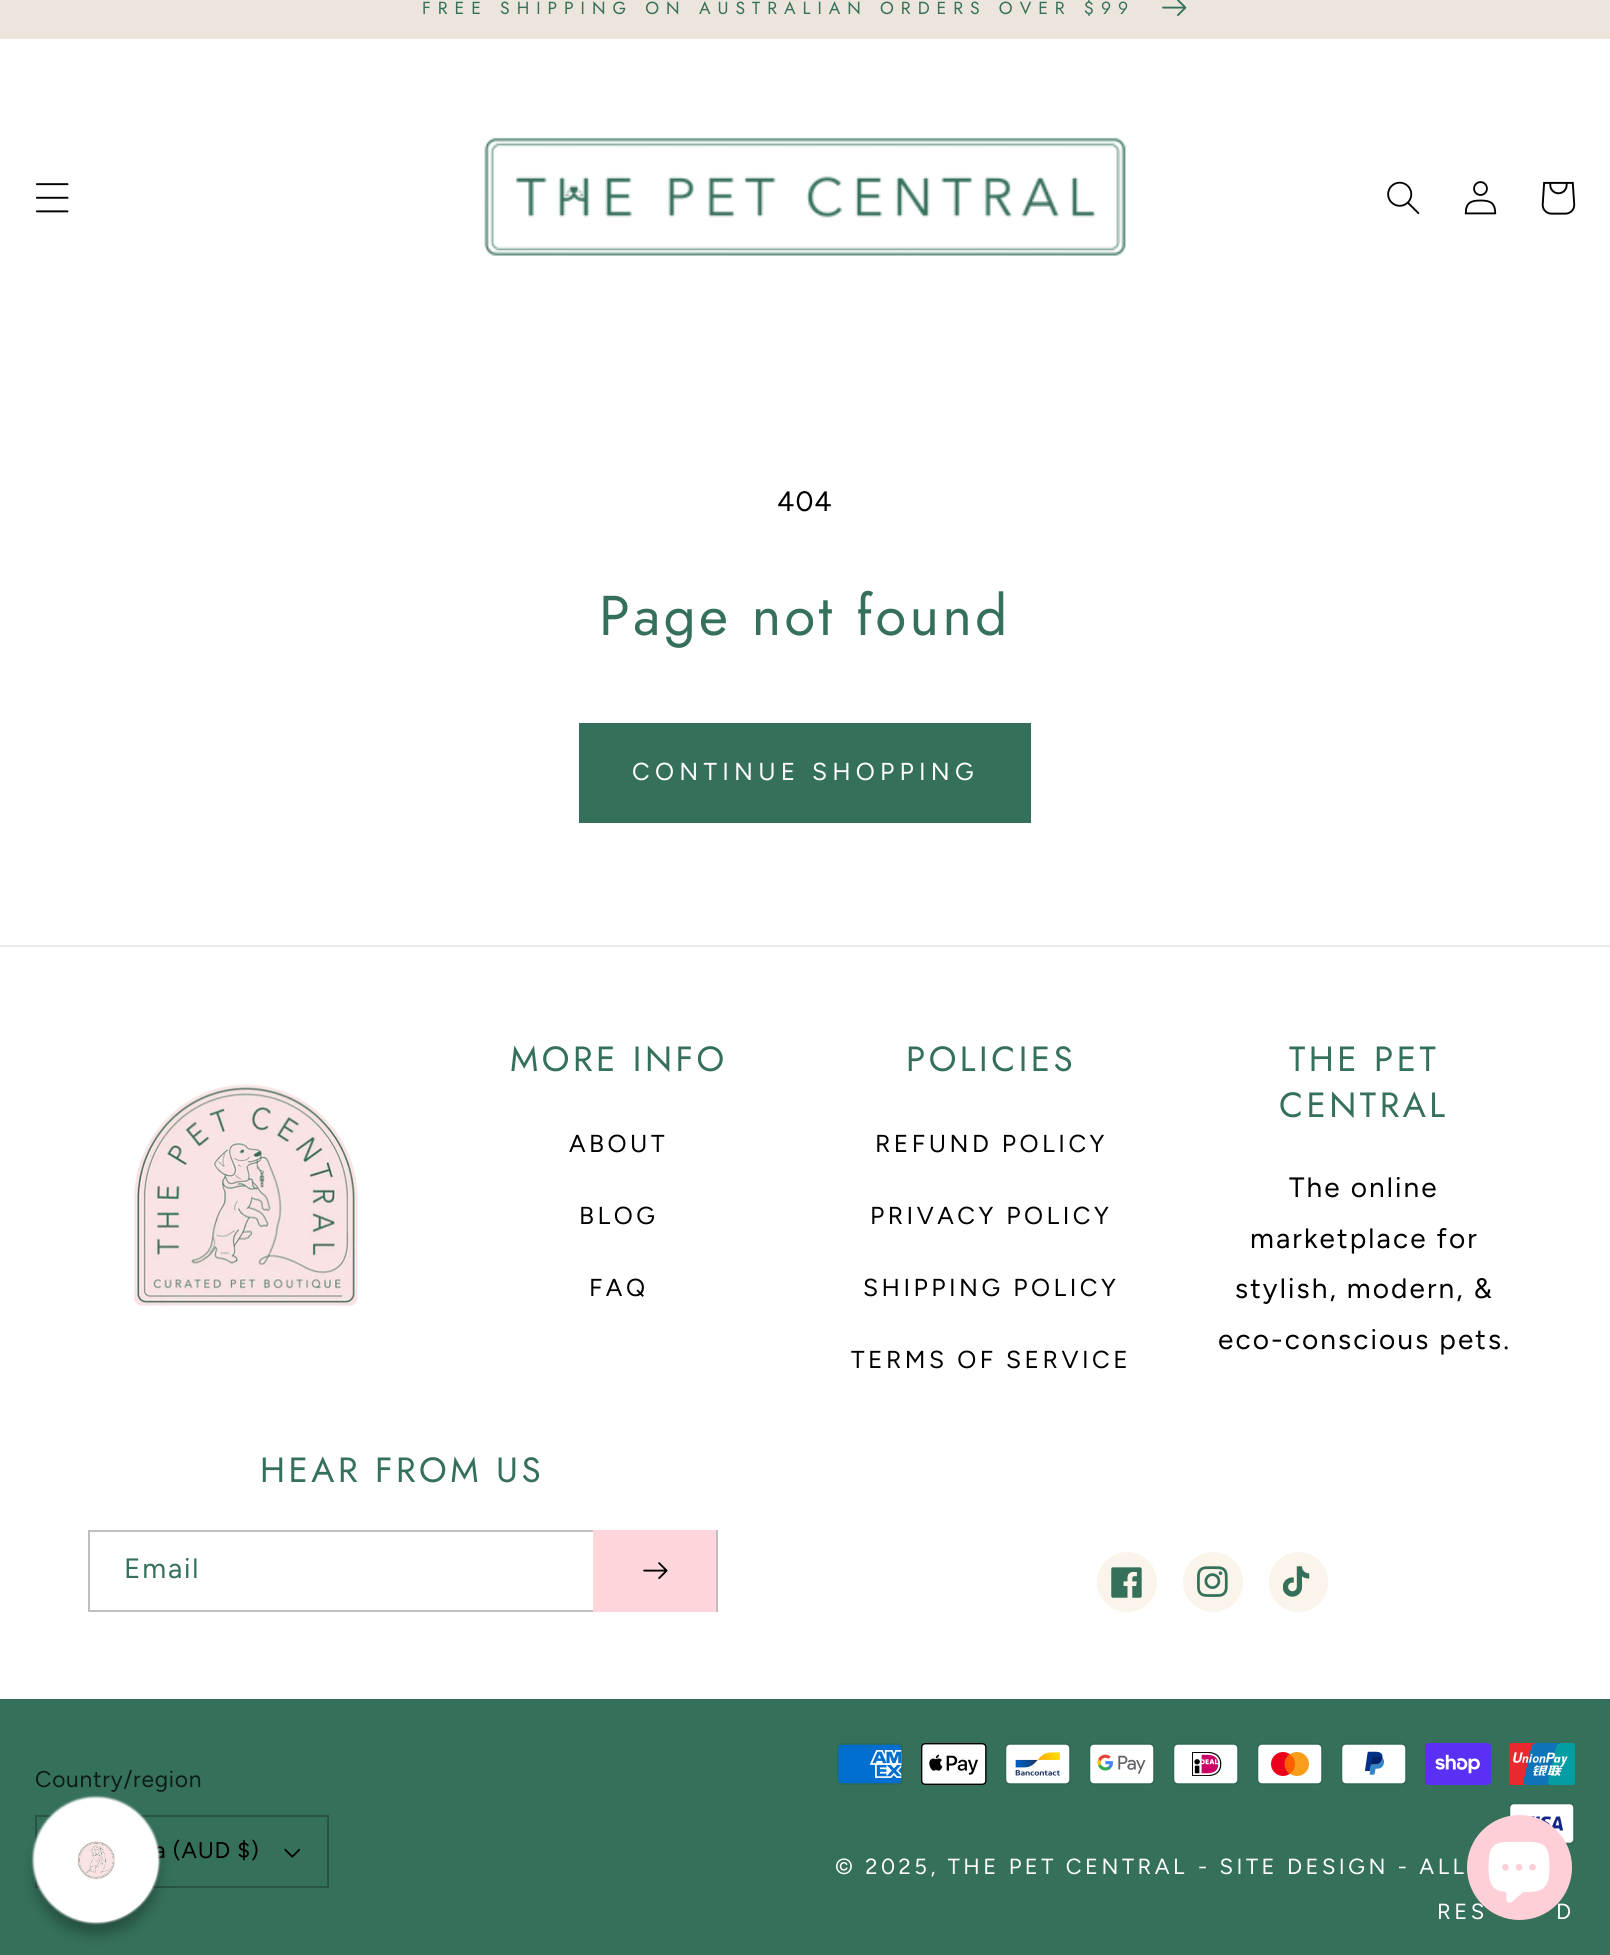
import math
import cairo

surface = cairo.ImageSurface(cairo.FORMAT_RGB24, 1610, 1955)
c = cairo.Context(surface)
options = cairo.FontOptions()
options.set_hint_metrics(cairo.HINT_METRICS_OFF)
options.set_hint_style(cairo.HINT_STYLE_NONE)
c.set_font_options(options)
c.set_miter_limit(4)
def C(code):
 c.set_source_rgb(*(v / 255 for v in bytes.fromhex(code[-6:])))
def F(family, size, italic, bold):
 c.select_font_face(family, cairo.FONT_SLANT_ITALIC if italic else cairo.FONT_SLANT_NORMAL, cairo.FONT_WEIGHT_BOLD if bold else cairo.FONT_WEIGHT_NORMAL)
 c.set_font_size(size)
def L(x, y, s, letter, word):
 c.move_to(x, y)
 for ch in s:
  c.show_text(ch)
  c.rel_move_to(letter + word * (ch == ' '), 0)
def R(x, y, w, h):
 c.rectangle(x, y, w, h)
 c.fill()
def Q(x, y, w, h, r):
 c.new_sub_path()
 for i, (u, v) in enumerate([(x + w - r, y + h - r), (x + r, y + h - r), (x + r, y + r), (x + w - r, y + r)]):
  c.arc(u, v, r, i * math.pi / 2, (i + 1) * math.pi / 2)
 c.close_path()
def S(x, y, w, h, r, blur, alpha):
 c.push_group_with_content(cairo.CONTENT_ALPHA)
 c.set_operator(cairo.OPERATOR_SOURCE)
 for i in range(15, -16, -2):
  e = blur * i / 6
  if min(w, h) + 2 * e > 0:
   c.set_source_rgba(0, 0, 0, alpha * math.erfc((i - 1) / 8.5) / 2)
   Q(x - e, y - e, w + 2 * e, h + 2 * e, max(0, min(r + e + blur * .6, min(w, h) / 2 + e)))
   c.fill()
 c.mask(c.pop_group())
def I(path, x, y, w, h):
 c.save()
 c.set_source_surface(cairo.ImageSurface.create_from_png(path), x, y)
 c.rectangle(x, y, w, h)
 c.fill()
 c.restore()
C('ffffff')
c.paint()
C('ece5dc')
R(0,0,1610,39)
F('Jost',17.5,0,0)
C('35705a')
L(422,14,'FREE SHIPPING ON AUSTRALIAN ORDERS OVER $99',7,0)
I('1.png',1162,0,25,16)
I('2.png',36,183,33,30)
I('3.png',484,137,642,119)
I('4.png',1387,181,33,34)
I('5.png',1464,181,33,34)
I('6.png',1541,181,35,34)
F('Figtree',28,0,0)
C('000000')
L(777,511,'404',1,0)
F('Jost',56,0,0)
C('35705a')
L(599,635,'Page not found',3.5,0)
R(579,723,452,100)
F('Figtree',24.5,0,0)
C('ffffff')
L(632,780,'CONTINUE SHOPPING',5.25,0)
C('ebebeb')
R(0,945,1610,2)
I('7.png',134,1084,224,222)
F('Jost',35,0,0)
C('35705a')
L(510,1071,'MORE INFO',3.5,0)
F('Figtree',24.5,0,0)
C('000000')
L(569,1152,'ABOUT',3.5,0)
L(579,1224,'BLOG',3.5,0)
L(589,1296,'FAQ',3.5,0)
F('Jost',35,0,0)
C('35705a')
L(906,1071,'POLICIES',3.5,0)
F('Figtree',24.5,0,0)
C('000000')
L(875,1152,'REFUND POLICY',3.5,0)
L(870,1224,'PRIVACY POLICY',3.5,0)
L(863,1296,'SHIPPING POLICY',3.5,0)
L(851,1368,'TERMS OF SERVICE',3.5,0)
F('Jost',35,0,0)
C('35705a')
L(1289,1071,'THE PET',3.5,0)
L(1279,1117,'CENTRAL',3.5,0)
F('Figtree',28,0,0)
C('000000')
L(1289,1197,'The online',2.1,0)
L(1250,1248,'marketplace for',2.1,0)
L(1235,1298,'stylish, modern, &',2.1,0)
L(1218,1349,'eco-conscious pets.',2.1,0)
F('Jost',35,0,0)
C('35705a')
L(260,1482,'HEAR FROM US',3.5,0)
c.rectangle(89,1531,628,80)
C('bfbfbf')
c.stroke()
F('Figtree',28,0,0)
C('35705a')
L(124,1578,'Email',1.75,0)
C('ffd6dc')
R(593,1530,123,82)
I('8.png',643,1562,25,17)
C('fbf4ea')
c.arc(1127,1582,30,0,2 * math.pi)
c.fill()
I('9.png',1111,1567,31,31)
c.arc(1213,1582,30,0,2 * math.pi)
c.fill()
I('10.png',1197,1566,31,31)
Q(1269,1552,59,60,29.5)
c.fill()
I('11.png',1283,1566,27,31)
C('35705a')
R(0,1699,1610,256)
F('Figtree',22.75,0,0)
C('0d1c17')
L(35,1787,'Country/region',.75,0)
I('12.png',284,1848,17,10)
c.rectangle(36,1816,292,71)
C('285444')
c.stroke()
C('000000')
L(154,1858,'a (AUD $)',.75,0)
I('13.png',837,1743,66,42)
I('14.png',921,1743,66,42)
I('15.png',1005,1743,66,42)
I('16.png',1089,1743,66,42)
I('17.png',1173,1743,66,42)
I('18.png',1257,1743,66,42)
I('19.png',1341,1743,66,42)
I('20.png',1425,1743,66,42)
I('21.png',1509,1743,66,42)
I('22.png',1509,1803,66,42)
F('Figtree',21.9,0,0)
C('ffffff')
L(835,1874,'© 2025, THE PET CENTRAL',3.5,0)
L(1198,1874,'- SITE DESIGN - ALL',3.5,0)
L(1437,1919,'RES',3.5,0)
L(1556,1919,'D',3.5,0)
C('000000')
S(35,1811,123,123,61.5,7,.3)
C('ffffff')
S(33,1797,126,126,63,1,1)
C('ffffff')
c.arc(96.5,1860.5,60.5,0,2 * math.pi)
c.fill_preserve()
c.stroke()
I('23.png',77,1841,38,39)
C('ffcfd8')
c.arc(1519.5,1867.5,52.5,0,2 * math.pi)
c.fill()
I('24.png',1488,1841,62,62)
surface.write_to_png('o.png')
